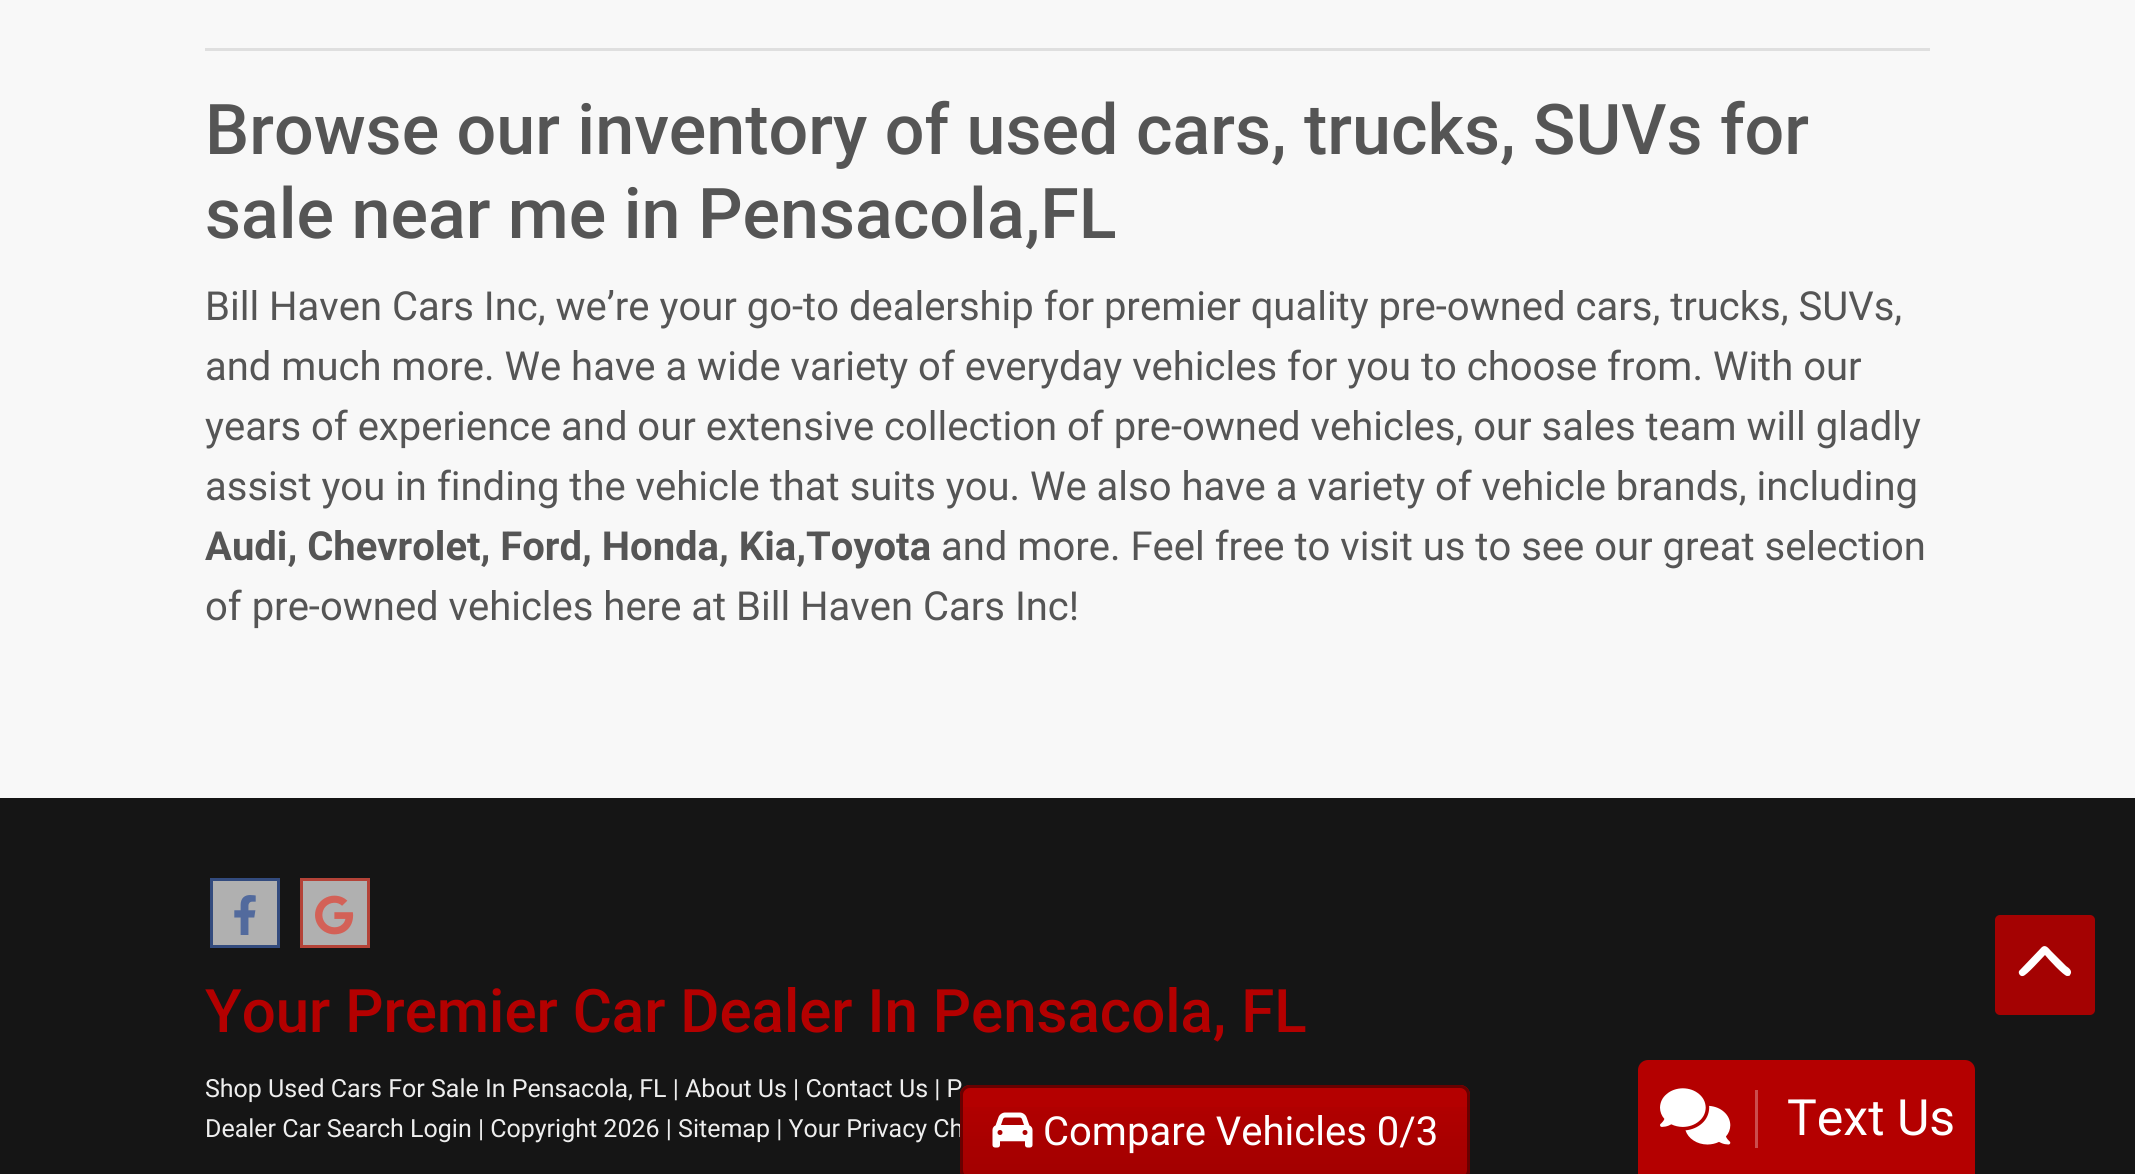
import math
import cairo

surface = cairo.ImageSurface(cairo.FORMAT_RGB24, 2135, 1174)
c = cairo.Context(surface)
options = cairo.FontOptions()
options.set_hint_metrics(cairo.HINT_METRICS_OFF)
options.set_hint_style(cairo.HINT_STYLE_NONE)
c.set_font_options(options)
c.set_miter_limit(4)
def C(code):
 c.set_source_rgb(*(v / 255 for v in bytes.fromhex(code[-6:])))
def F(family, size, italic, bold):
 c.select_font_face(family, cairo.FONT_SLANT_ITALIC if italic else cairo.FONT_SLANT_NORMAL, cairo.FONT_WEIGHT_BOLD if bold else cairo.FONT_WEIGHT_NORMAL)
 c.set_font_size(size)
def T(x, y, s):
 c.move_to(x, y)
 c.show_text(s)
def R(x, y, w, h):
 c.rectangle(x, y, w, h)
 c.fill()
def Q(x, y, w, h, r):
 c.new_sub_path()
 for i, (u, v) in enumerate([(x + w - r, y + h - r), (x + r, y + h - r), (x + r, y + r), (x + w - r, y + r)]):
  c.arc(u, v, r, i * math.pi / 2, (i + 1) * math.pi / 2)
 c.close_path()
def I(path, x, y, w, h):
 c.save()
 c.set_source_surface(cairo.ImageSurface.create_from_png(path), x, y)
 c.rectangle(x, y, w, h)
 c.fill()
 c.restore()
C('f8f8f8')
c.paint()
C('dfdfdf')
R(205,48,1725,3)
F('Roboto Medium',70,0,0)
C('555555')
T(205,154,'Browse our inventory of used cars, trucks, SUVs for')
T(205,238,'sale near me in Pensacola,FL')
F('Roboto',40,0,0)
T(205,320,'Bill Haven Cars Inc, we’re your go-to dealership for premier quality pre-owned cars, trucks, SUVs,')
T(205,380,'and much more. We have a wide variety of everyday vehicles for you to choose from. With our')
T(205,440,'years of experience and our extensive collection of pre-owned vehicles, our sales team will gladly')
T(205,500,'assist you in finding the vehicle that suits you. We also have a variety of vehicle brands, including')
F('Roboto',40,0,1)
T(205,560,'Audi, Chevrolet, Ford, Honda, Kia,Toyota')
F('Roboto',40,0,0)
T(941,560,'and more. Feel free to visit us to see our great selection')
T(205,620,'of pre-owned vehicles here at Bill Haven Cars Inc!')
C('151515')
R(0,798,2135,376)
F('Roboto',25,0,0)
C('eeeeee')
T(205,1097,'Shop Used Cars For Sale In Pensacola, FL | About Us | Contact Us | P')
T(205,1137,'Dealer Car Search Login | Copyright 2026 | Sitemap | Your Privacy Ch')
C('b40000')
Q(960,1085,510,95,10)
c.fill()
gradient = cairo.LinearGradient(1215,1088,1215,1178)
gradient.add_color_stop_rgba(0,0,0,0,0)
gradient.add_color_stop_rgba(1,0,0,0,.1)
c.set_source(gradient)
R(960,1107,510,67)
Q(961.5,1086.5,507,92,8.5)
C('680000')
c.set_line_width(3)
c.stroke()
I('1.png',992,1112,41,36)
F('Roboto',40,0,0)
C('ffffff')
T(1043,1145,'Compare Vehicles 0/3')
c.set_source_rgba(0.706,0,0,0.9)
Q(1995,915,100,100,5)
c.fill()
C('ffffff')
c.new_path()
c.move_to(2042,947)
c.curve_to(2046,944,2049,949,2051,951)
c.line_to(2066,966)
c.curve_to(2069,968,2073,971,2070,975)
c.curve_to(2070,976,2068,976,2067,976)
c.curve_to(2064,976,2048,959,2045,955)
c.curve_to(2042,958,2026,976,2023,976)
c.curve_to(2020,977,2017,972,2020,970)
c.close_path()
c.fill()
C('b0b0b0')
c.rectangle(211.5,879.5,67,67)
c.fill_preserve()
C('334b7e')
c.stroke()
I('2.png',234,895,22,40)
C('b0b0b0')
c.rectangle(301.5,879.5,67,67)
c.fill_preserve()
C('b44338')
c.stroke()
I('3.png',315,895,39,40)
F('Roboto Medium',60,0,0)
C('b40000')
T(205,1032,'Your Premier Car Dealer In Pensacola, FL')
c.new_path()
c.move_to(1648,1060)
c.line_to(1965,1060)
c.curve_to(1970.5,1060,1975,1064.5,1975,1070)
c.line_to(1975,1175)
c.line_to(1638,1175)
c.line_to(1638,1070)
c.curve_to(1638,1064.5,1642.5,1060,1648,1060)
c.close_path()
c.fill()
C('cb4d4d')
R(1755,1090,3,58)
I('4.png',1660,1088,71,57)
F('Roboto',50,0,0)
C('ffffff')
T(1787,1135,'Text Us')
surface.write_to_png('o.png')
